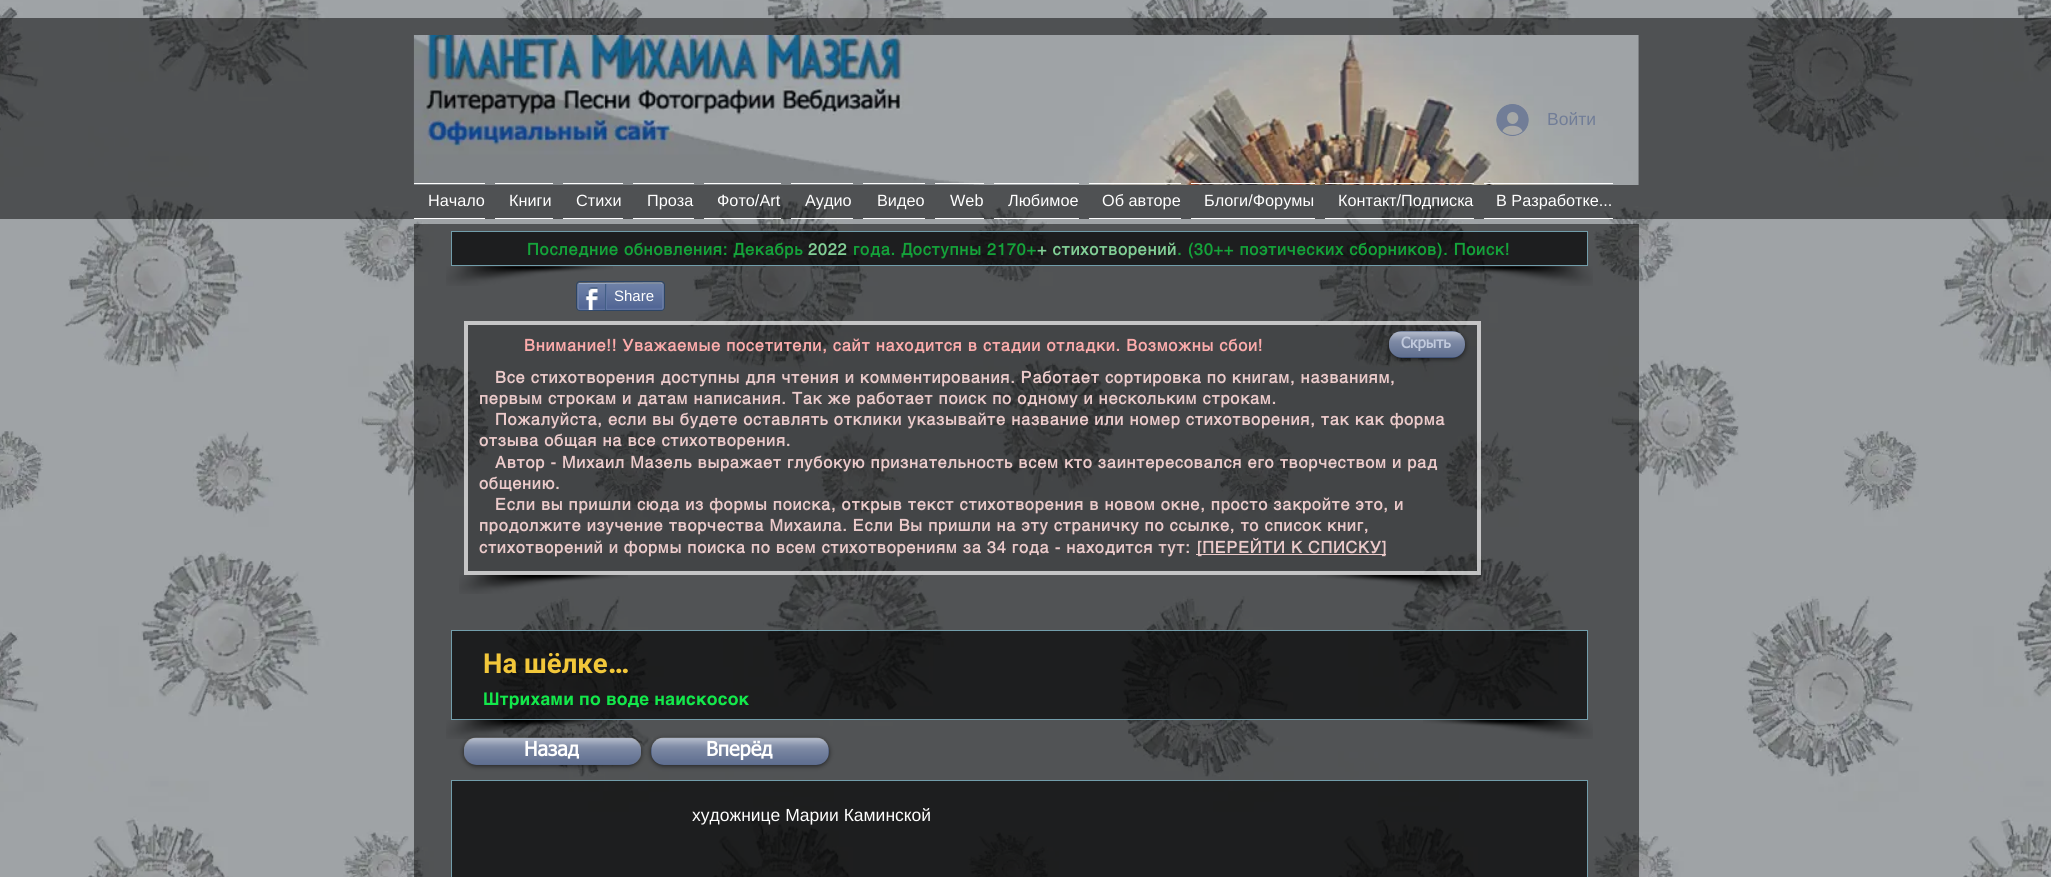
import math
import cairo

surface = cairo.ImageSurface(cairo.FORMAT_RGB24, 2051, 877)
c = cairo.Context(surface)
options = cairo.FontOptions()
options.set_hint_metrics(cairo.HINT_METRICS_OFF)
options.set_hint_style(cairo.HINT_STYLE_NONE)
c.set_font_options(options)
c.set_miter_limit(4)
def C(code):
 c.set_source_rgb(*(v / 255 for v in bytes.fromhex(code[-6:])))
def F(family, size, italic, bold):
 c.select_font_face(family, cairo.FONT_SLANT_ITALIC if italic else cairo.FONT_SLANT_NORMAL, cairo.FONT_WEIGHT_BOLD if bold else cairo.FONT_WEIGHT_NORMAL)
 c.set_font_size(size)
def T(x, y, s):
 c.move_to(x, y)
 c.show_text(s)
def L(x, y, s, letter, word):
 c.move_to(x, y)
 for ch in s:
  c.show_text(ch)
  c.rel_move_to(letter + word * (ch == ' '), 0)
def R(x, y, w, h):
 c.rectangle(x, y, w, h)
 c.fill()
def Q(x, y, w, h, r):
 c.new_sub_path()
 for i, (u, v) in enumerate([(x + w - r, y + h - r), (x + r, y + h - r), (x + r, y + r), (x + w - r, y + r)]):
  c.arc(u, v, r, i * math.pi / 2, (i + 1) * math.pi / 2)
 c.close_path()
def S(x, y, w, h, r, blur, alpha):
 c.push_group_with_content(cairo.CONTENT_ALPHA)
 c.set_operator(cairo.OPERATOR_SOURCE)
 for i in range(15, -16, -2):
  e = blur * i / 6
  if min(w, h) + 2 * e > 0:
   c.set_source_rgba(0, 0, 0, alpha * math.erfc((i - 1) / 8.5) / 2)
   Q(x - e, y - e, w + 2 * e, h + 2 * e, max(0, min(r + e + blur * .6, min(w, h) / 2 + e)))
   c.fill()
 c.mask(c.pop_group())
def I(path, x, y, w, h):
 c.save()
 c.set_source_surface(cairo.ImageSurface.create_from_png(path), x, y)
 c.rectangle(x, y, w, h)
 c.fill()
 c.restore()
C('ffffff')
c.paint()
I('1.png',0,0,2051,877)
c.set_source_rgba(0,0,0,0.5)
R(0,18,2051,201)
I('3.png',413,35,1226,150)
I('2.png',1496,104,33,32)
F('Liberation Sans',17.5,0,0)
C('717d97')
T(1547,125,'Войти')
C('ffffff')
R(414,183,71,1)
R(414,218,71,1)
F('Liberation Sans',16.25,0,0)
T(428,206,'Начало')
R(495,183,58,1)
R(495,218,58,1)
T(509,206,'Книги')
R(563,183,60,1)
R(563,218,60,1)
T(576,206,'Стихи')
R(633,183,61,1)
R(633,218,61,1)
T(647,206,'Проза')
R(704,183,77,1)
R(704,218,77,1)
T(717,206,'Фото/Art')
R(791,183,62,1)
R(791,218,62,1)
T(805,206,'Аудио')
R(863,183,62,1)
R(863,218,62,1)
T(877,206,'Видео')
R(935,183,49,1)
R(935,218,49,1)
T(950,206,'Web')
R(994,183,85,1)
R(994,218,85,1)
T(1008,206,'Любимое')
R(1089,183,92,1)
R(1089,218,92,1)
T(1102,206,'Об авторе')
R(1191,183,124,1)
R(1191,218,124,1)
T(1204,206,'Блоги/Форумы')
R(1325,183,149,1)
R(1325,218,149,1)
T(1338,206,'Контакт/Подписка')
R(1484,183,129,1)
R(1484,218,129,1)
T(1496,206,'В Разработке...')
c.set_source_rgba(0,0,0,0.49)
R(414,224,1225,653)
c.set_source_rgba(0,0,0,0.64)
c.rectangle(451.5,231.5,1136,34)
c.fill_preserve()
C('729eab')
c.set_line_width(1)
c.stroke()
F('helvetica',16.25,0,1)
C('14a33a')
L(527,255,'Последние обновления: Декабрь',.81,0)
C('82cf96')
L(808,255,'2022',.81,0)
C('14a33a')
L(853,255,'года. Доступны 2170+',.81,0)
C('82cf96')
L(1037,255,'+ стихотворений',.81,0)
C('14a33a')
L(1177,255,'. (30++ поэтических сборников). Поиск!',.81,0)
I('4.png',446,266,167,20)
I('5.png',1426,266,167,20)
Q(576.5,281.5,88,29,3.5)
C('2d4565')
c.stroke()
I('6.png',577,283,87,27)
c.new_path()
c.move_to(578.5,283.5)
c.line_to(647.5,283)
c.line_to(661,283)
c.line_to(662.5,283.5)
C('9aabc6')
c.set_line_width(1.2)
c.stroke()
c.new_path()
c.move_to(662.5,283.5)
c.line_to(663,285)
c.line_to(663,307.5)
c.line_to(662.5,309)
C('6f83ad')
c.stroke()
c.new_path()
c.move_to(662.5,309)
c.line_to(593.5,309.5)
c.line_to(580,309.5)
c.line_to(578.5,309)
C('6176a3')
c.stroke()
c.new_path()
c.move_to(578.5,309)
c.line_to(578,307.5)
c.line_to(578,285)
c.line_to(578.5,283.5)
C('6f83ad')
c.stroke()
I('7.png',585,287,13,23)
C('425e85')
R(605,284,1,26)
F('Liberation Sans',15,0,0)
C('ffffff')
T(614,301,'Share')
C('6176a3')
R(606,284,1,25)
c.set_source_rgba(0,0,0,0.17)
R(464,321,1017,254)
c.rectangle(466,323,1013,250)
c.set_source_rgba(1,1,1,0.69)
c.set_line_width(4)
c.stroke()
F('helvetica',16.25,0,1)
C('fcabab')
L(524,351,'Внимание!! Уважаемые посетители, сайт находится в стадии отладки. Возможны сбои!',.81,0)
C('000000')
S(1389,333,76,26,13,2.5,.6)
C('394c75')
Q(1389,331,76,27,13)
c.fill()
I('8.png',1389,331,76,27)
F('tahoma',15,0,1)
C('c0c9dc')
T(1401,348,'Скрыть')
F('helvetica',16.25,0,1)
C('ebcaca')
L(495,383,'Все стихотворения доступны для чтения и комментирования. Работает сортировка по книгам, названиям,',.81,0)
L(479,404,'первым строкам и датам написания. Так же работает поиск по одному и нескольким строкам.',.81,0)
L(495,425,'Пожалуйста, если вы будете оставлять отклики указывайте название или номер стихотворения, так как форма',.81,0)
L(479,446,'отзыва общая на все стихотворения.',.81,0)
L(495,468,'Автор - Михаил Мазель выражает глубокую признательность всем кто заинтересовался его творчеством и рад',.81,0)
L(479,489,'общению.',.81,0)
L(495,510,'Если вы пришли сюда из формы поиска, открыв текст стихотворения в новом окне, просто закройте это, и',.81,0)
L(479,531,'продолжите изучение творчества Михаила. Если Вы пришли на эту страничку по ссылке, то список книг,',.81,0)
L(479,553,'стихотворений и формы поиска по всем стихотворениям за 34 года - находится тут:',.81,0)
R(1196,554,190,1)
L(1197,553,'[ПЕРЕЙТИ К СПИСКУ]',.81,0)
I('9.png',459,575,169,19)
I('10.png',1317,575,169,19)
c.set_source_rgba(0,0,0,0.64)
c.rectangle(451.5,630.5,1136,89)
c.fill_preserve()
C('729eab')
c.set_line_width(1)
c.stroke()
F('Roboto',27.5,0,1)
C('f2c73a')
T(483,673,'На шёлке')
F('Roboto Black',27.5,0,0)
T(608,673,'…')
F('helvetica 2',17.5,0,1)
C('13e84b')
L(483,705,'Штрихами по воде наискосок',.2,0)
I('11.png',446,720,169,19)
I('12.png',1423,720,170,19)
C('000000')
S(464,739,177,27,13,2.5,.6)
C('394c75')
Q(464,738,177,27,13)
c.fill()
I('13.png',464,737,177,28)
F('tahoma',20,0,1)
C('ffffff')
T(524,756,'Назад')
C('000000')
S(651,739,178,27,13,2.5,.6)
C('394c75')
Q(651,738,178,27,13)
c.fill()
I('14.png',651,737,178,28)
C('ffffff')
T(706,756,'Вперёд')
c.set_source_rgba(0,0,0,0.64)
c.rectangle(451.5,780.5,1136,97)
c.fill_preserve()
C('729eab')
c.stroke()
F('Liberation Sans',17.5,0,0)
C('ffffff')
T(692,821,'художнице Марии Каминской')
surface.write_to_png('o.png')
